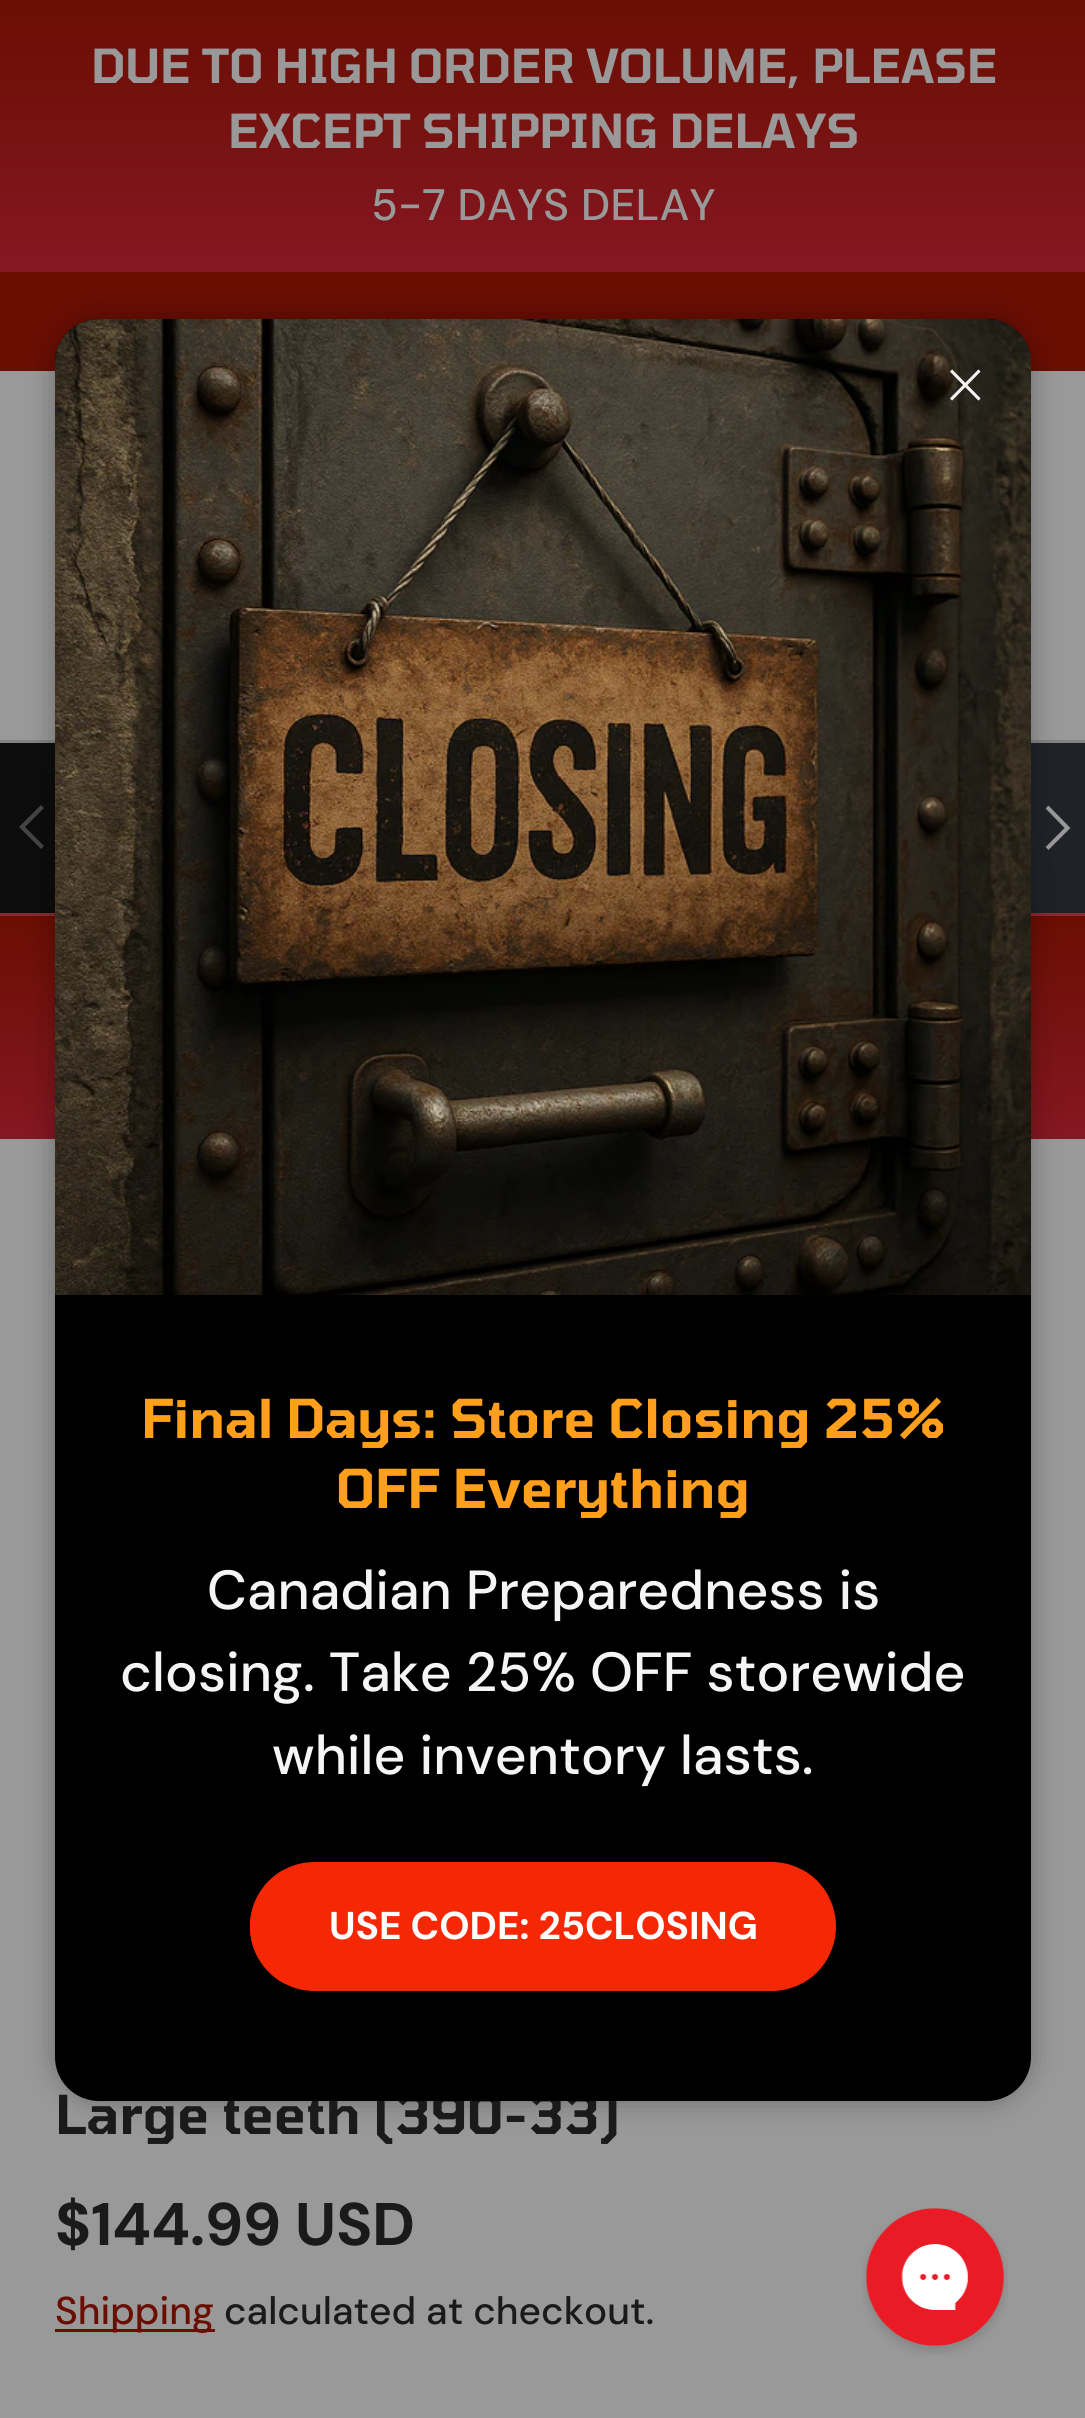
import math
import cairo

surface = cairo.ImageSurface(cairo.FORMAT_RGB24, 1085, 2418)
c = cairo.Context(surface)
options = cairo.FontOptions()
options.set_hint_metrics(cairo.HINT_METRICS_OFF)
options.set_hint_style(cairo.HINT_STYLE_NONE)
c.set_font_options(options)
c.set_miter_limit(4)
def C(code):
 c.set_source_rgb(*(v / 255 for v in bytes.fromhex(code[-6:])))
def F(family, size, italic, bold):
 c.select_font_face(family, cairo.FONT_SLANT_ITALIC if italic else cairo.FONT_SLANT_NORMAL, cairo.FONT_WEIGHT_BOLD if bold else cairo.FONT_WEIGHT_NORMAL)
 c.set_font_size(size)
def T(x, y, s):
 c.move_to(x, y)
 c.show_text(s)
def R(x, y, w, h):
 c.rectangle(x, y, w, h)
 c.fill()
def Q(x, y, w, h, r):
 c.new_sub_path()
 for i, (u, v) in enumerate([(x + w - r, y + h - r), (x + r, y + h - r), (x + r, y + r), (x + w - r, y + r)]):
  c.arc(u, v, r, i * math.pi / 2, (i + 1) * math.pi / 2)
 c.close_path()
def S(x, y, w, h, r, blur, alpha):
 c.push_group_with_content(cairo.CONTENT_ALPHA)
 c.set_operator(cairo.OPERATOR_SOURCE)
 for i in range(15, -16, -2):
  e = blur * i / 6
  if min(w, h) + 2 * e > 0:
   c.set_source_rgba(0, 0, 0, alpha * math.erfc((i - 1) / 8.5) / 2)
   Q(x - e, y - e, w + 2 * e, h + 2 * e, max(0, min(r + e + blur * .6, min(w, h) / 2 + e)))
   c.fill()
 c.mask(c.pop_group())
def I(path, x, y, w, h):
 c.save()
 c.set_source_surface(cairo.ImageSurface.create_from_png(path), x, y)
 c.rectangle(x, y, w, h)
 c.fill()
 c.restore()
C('999999')
c.paint()
gradient = cairo.LinearGradient(543,0,543,272)
gradient.add_color_stop_rgba(0,0.416,0.055,0.008,1)
gradient.add_color_stop_rgba(1,0.522,0.09,0.133,1)
c.set_source(gradient)
R(0,0,1085,272)
F('Tomorrow SemiBold',46.7,0,0)
C('999999')
T(91,83,'DUE TO HIGH ORDER VOLUME, PLEASE')
T(228,148,'EXCEPT SHIPPING DELAYS')
F('DM Sans Medium',44,0,0)
T(371,220,'5-7 DAYS DELAY')
C('6a0e02')
R(0,272,1085,99)
C('838383')
R(0,740,1085,3)
gradient = cairo.LinearGradient(857,514,229,1142)
gradient.add_color_stop_rgba(.08,0.122,0.137,0.157,1)
gradient.add_color_stop_rgba(.52,0.098,0.11,0.125,1)
gradient.add_color_stop_rgba(.86,0.047,0.047,0.047,1)
c.set_source(gradient)
R(0,743,1085,170)
C('444444')
c.new_path()
c.move_to(19,827)
c.line_to(41,805)
c.line_to(44,808)
c.line_to(25,827)
c.line_to(44,846)
c.line_to(41,849)
c.close_path()
c.fill()
c.new_path()
c.move_to(1047,807)
c.line_to(1067.5,828)
c.line_to(1047,848.5)
C('999999')
c.set_line_width(4.1)
c.stroke()
gradient = cairo.LinearGradient(543,916,543,1139)
gradient.add_color_stop_rgba(0,0.416,0.055,0.008,1)
gradient.add_color_stop_rgba(1,0.522,0.09,0.133,1)
c.set_source(gradient)
R(0,916,1085,223)
C('882b34')
R(0,913,1085,3)
C('000000')
S(55,319,976,1782,44,14,.3)
F('Tomorrow SemiBold',53.25,0,0)
C('191a19')
T(55,2134,'Large teeth (390-33)')
C('000000')
Q(55,319,976,1782,44)
c.fill()
I('1.png',55,319,976,976)
c.new_path()
c.move_to(951,399.5)
c.line_to(979.5,370.5)
c.move_to(951,370.5)
c.line_to(979.5,399.5)
C('f5f5f5')
c.set_line_width(3.1)
c.set_line_join(cairo.LINE_JOIN_ROUND)
c.stroke()
C('ff9f1c')
T(141,1438,'Final Days: Store Closing 25%')
T(336,1508,'OFF Everything')
F('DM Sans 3 Medium',55,0,0)
C('f5f5f5')
T(207,1609,'Canadian Preparedness is')
T(120,1691,'closing. Take 25% OFF storewide')
T(272,1774,'while inventory lasts.')
c.save()
Q(250,1862,586,129,64.5)
c.clip()
gradient = cairo.LinearGradient(-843,1723,791,2130)
gradient.add_color_stop_rgba(.6,0.973,0.329,0.224,1)
gradient.add_color_stop_rgba(.6,0.961,0.153,0.016,1)
gradient.add_color_stop_rgba(1,0.961,0.153,0.016,1)
c.set_source(gradient)
R(250,1870,578,113)
c.restore()
Q(254,1866,578,121,60.5)
C('f52704')
c.set_line_width(8)
c.set_line_join(cairo.LINE_JOIN_MITER)
c.stroke()
F('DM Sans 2',38.75,0,1)
C('ffffff')
T(329,1939,'USE CODE: 25CLOSING')
F('DM Sans',60,0,1)
C('191a19')
T(55,2245,'$144.99 USD')
C('6a0e02')
R(55,2329,160,3)
F('DM Sans 2 Medium',38.75,0,0)
T(55,2324,'Shipping')
C('191a19')
T(224,2324,'calculated at checkout.')
I('2.png',862,2208,146,148)
surface.write_to_png('o.png')
